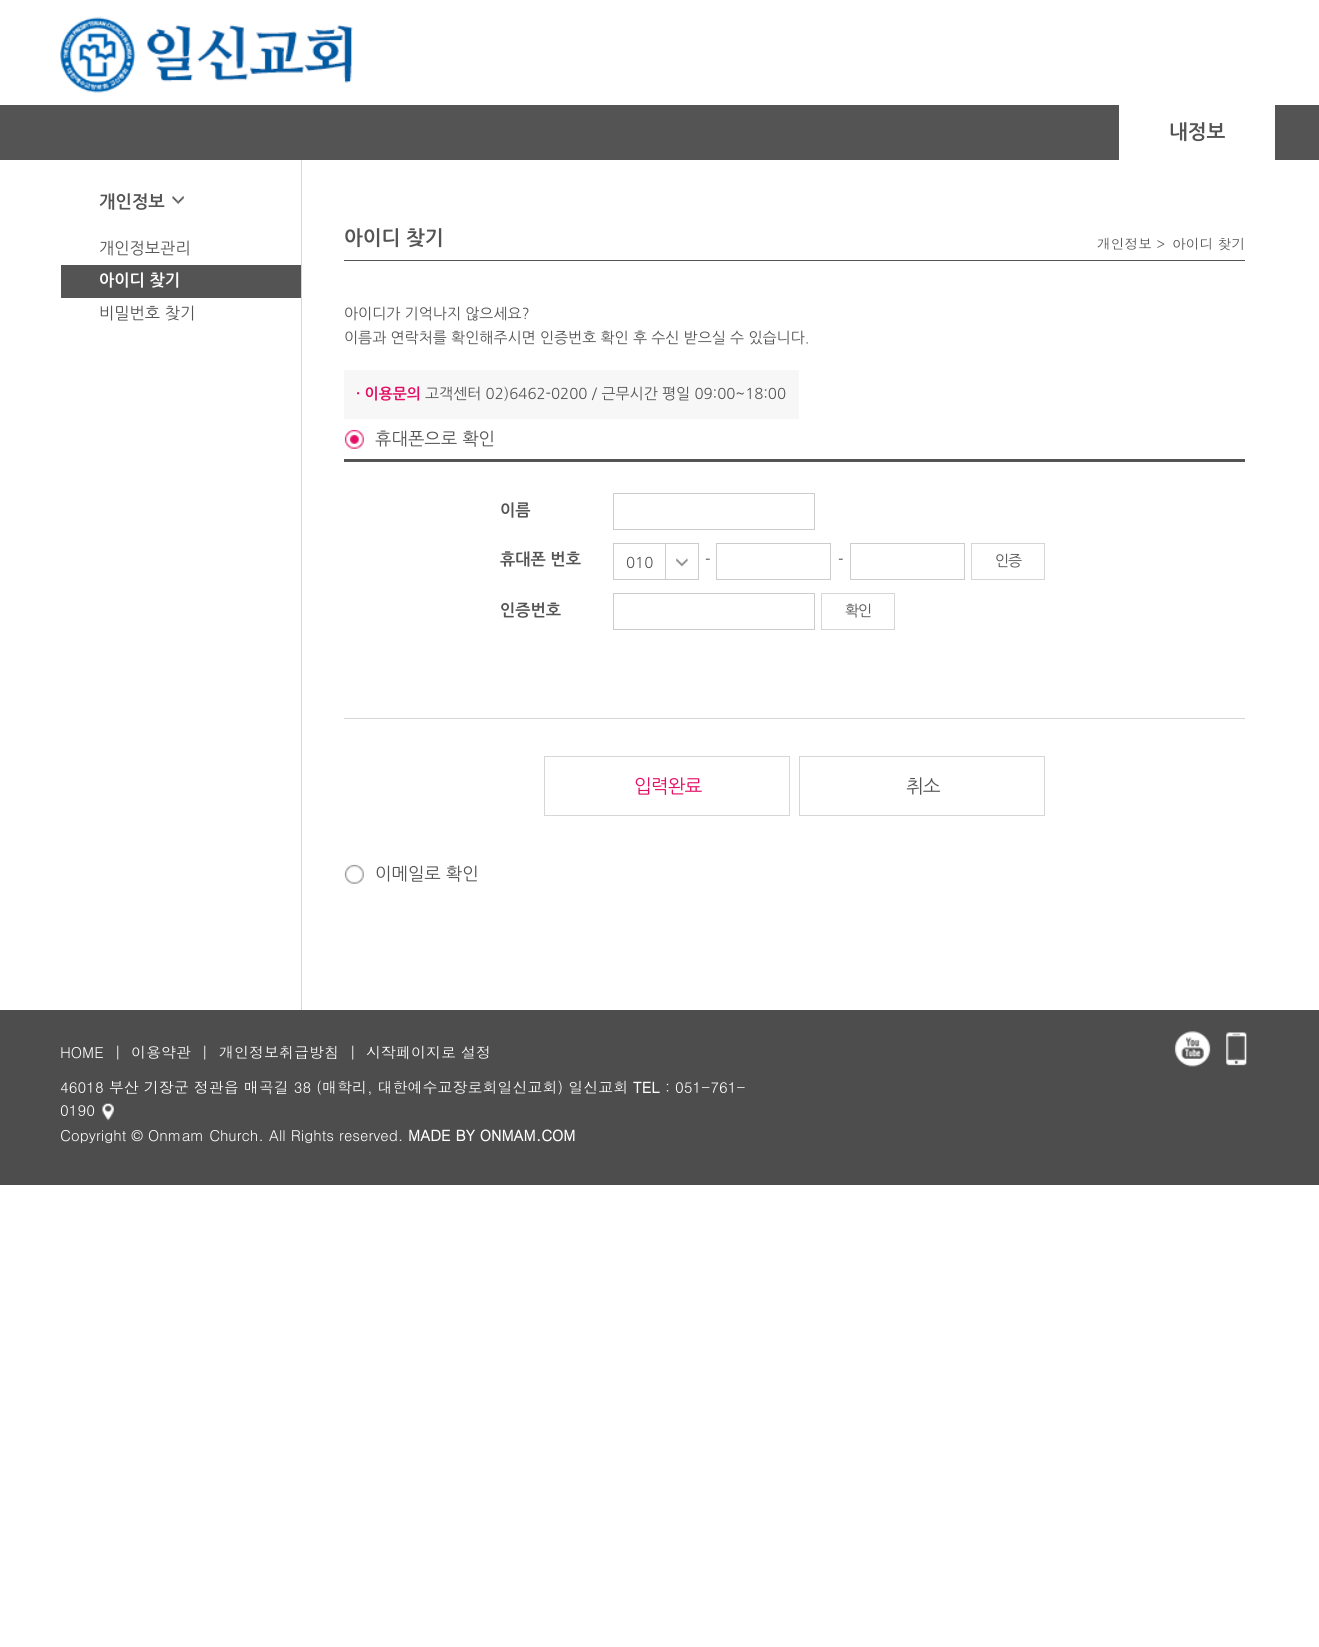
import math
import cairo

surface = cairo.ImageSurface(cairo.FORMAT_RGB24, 1319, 1647)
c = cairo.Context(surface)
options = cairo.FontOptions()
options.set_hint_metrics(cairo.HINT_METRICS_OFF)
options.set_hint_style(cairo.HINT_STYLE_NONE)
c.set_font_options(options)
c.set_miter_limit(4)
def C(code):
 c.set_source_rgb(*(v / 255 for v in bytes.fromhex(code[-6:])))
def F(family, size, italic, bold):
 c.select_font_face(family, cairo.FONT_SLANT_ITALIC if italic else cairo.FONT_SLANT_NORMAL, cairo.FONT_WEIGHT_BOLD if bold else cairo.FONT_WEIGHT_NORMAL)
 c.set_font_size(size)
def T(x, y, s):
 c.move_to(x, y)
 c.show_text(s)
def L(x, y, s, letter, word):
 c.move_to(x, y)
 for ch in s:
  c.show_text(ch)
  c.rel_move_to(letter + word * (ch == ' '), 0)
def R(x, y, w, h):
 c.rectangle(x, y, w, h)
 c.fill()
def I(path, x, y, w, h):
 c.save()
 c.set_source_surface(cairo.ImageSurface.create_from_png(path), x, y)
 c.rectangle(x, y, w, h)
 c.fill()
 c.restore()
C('ffffff')
c.paint()
C('545454')
R(0,105,1319,55)
I('1.png',60,17,293,76)
C('ffffff')
R(1119,105,156,55)
F('NanumGothic',20,0,1)
C('545454')
T(1169,139,'내정보')
I('2.png',172,196,12,8)
F('NanumGothic',17.5,0,1)
T(99,208,'개인정보')
F('NanumGothic',16.25,0,0)
T(99,254,'개인정보관리')
R(61,265,240,33)
F('NanumGothic',16.25,0,1)
C('ffffff')
T(99,286,'아이디 찾기')
F('NanumGothic',16.25,0,0)
C('545454')
T(99,319,'비밀번호 찾기')
C('d6d6d6')
R(301,160,1,850)
C('545454')
R(344,260,901,1)
F('NanumGothic',20,0,1)
T(344,245,'아이디 찾기')
F('Dotum',13.75,0,0)
T(1097,249,'개인정보 >')
T(1172,249,'아이디 찾기')
F('NanumGothic',15,0,0)
T(344,319,'아이디가 기억나지 않으세요?')
T(344,343,'이름과 연락처를 확인해주시면 인증번호 확인 후 수신 받으실 수 있습니다.')
C('f7f7f7')
R(344,370,455,49)
F('NanumGothic',15,0,1)
C('e40e64')
T(356,399,'· 이용문의')
F('NanumGothic',15,0,0)
C('545454')
T(425,399,'고객센터 02)6462-0200 / 근무시간 평일 09:00~18:00')
I('3.png',344,429,20,20)
F('NanumGothic',17.5,0,0)
T(375,445,'휴대폰으로 확인')
R(344,459,901,3)
C('d6d6d6')
R(344,718,901,1)
F('NanumGothic',16.25,0,1)
C('545454')
T(500,516,'이름')
c.rectangle(613.5,493.5,201,36)
C('cccccc')
c.set_line_width(1)
c.stroke()
C('545454')
T(500,565,'휴대폰 번호')
c.rectangle(613.5,543.5,85,36)
C('cccccc')
c.stroke()
F('NanumGothic',15,0,0)
C('545454')
T(626,568,'010')
C('cccccc')
R(665,544,1,35)
I('4.png',676,558,12,9)
C('545454')
T(705,565,'-')
c.rectangle(716.5,543.5,114,36)
C('cccccc')
c.stroke()
C('545454')
T(838,565,'-')
c.rectangle(850.5,543.5,114,36)
C('cccccc')
c.stroke()
c.rectangle(971.5,543.5,73,36)
C('d6d6d6')
c.stroke()
C('545454')
L(995,566,'인증',-1,0)
F('NanumGothic',16.25,0,1)
T(500,616,'인증번호')
c.rectangle(613.5,593.5,201,36)
C('cccccc')
c.stroke()
c.rectangle(821.5,593.5,73,36)
C('d6d6d6')
c.stroke()
F('NanumGothic',15,0,0)
C('545454')
L(845,616,'확인',-1,0)
c.rectangle(544.5,756.5,245,59)
C('d6d6d6')
c.stroke()
F('NanumGothic',19,0,0)
C('e40e64')
L(634,793,'입력완료',-1,0)
c.rectangle(799.5,756.5,245,59)
C('d6d6d6')
c.stroke()
C('545454')
L(906,793,'취소',-1,0)
I('5.png',344,864,20,20)
F('NanumGothic',17.5,0,0)
T(375,880,'이메일로 확인')
C('4d4d4d')
R(0,1010,1319,175)
F('Dotum',15,0,0)
C('ffffff')
T(60,1058,'HOME')
T(114,1058,'|')
T(131,1058,'이용약관')
T(201,1058,'|')
T(219,1058,'개인정보취급방침')
T(349,1058,'|')
T(366,1058,'시작페이지로 설정')
T(60,1093,'46018 부산 기장군 정관읍 매곡길 38 (매학리, 대한예수교장로회일신교회) 일신교회')
F('Dotum',15,0,1)
T(633,1093,'TEL')
F('Dotum',15,0,0)
T(665,1093,': 051-761-')
T(60,1116,'0190')
I('6.png',102,1103,12,18)
T(60,1141,'Copyright © Onmam Church. All Rights reserved.')
F('Dotum',15,0,1)
T(408,1141,'MADE BY ONMAM.COM')
I('7.png',1174,1031,37,36)
I('8.png',1226,1032,21,34)
surface.write_to_png('o.png')
